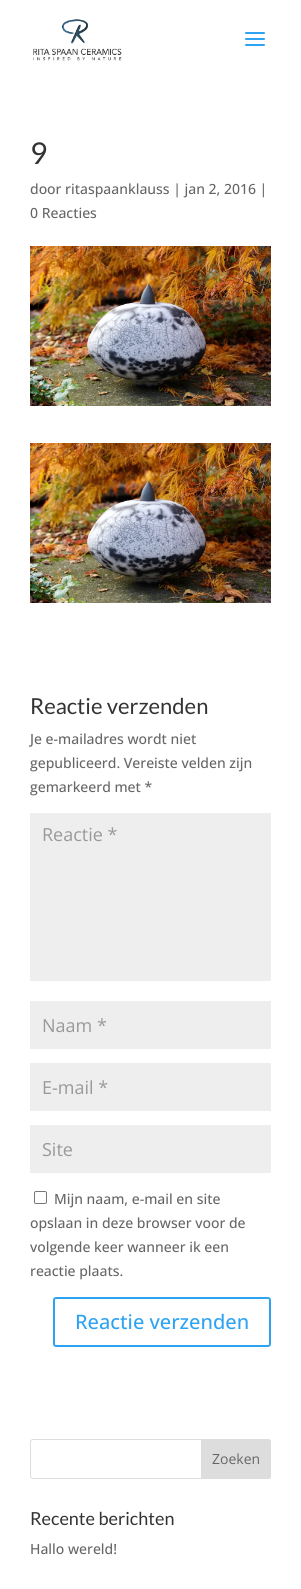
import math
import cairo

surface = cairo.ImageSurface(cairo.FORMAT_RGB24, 301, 1589)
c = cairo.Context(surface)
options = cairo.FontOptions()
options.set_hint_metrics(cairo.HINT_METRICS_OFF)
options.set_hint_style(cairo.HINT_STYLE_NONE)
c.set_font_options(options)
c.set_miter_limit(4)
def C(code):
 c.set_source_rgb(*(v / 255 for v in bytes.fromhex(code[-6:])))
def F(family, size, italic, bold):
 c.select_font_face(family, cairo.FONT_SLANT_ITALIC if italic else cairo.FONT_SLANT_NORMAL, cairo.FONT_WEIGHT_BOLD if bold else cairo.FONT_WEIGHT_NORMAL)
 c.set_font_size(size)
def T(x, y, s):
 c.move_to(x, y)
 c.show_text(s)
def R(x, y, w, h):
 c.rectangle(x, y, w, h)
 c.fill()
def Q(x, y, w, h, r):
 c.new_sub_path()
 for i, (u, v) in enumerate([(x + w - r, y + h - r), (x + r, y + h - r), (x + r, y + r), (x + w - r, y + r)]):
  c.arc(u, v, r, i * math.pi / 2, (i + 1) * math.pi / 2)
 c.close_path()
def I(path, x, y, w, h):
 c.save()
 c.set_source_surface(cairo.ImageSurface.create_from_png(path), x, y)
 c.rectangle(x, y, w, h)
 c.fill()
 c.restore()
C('ffffff')
c.paint()
I('1.png',33,19,89,42)
I('2.png',245,32,20,14)
F('Lato',30,0,0)
C('333333')
T(30,164,'9')
F('Open Sans Medium',14,0,0)
C('666666')
T(30,194,'door ritaspaanklauss | jan 2, 2016 |')
T(30,218,'0 Reacties')
I('3.png',30,246,241,160)
I('3.png',30,443,241,160)
F('Lato',22,0,0)
C('333333')
T(30,714,'Reactie verzenden')
F('Open Sans Medium',14,0,0)
C('666666')
T(30,744,'Je e-mailadres wordt niet')
T(30,768,'gepubliceerd. Vereiste velden zijn')
T(30,792,'gemarkeerd met *')
C('eeeeee')
R(30,813,241,168)
F('Open Sans',18,0,0)
C('999999')
T(42,841,'Reactie *')
C('eeeeee')
R(30,1001,241,48)
C('999999')
T(42,1032,'Naam *')
C('eeeeee')
R(30,1063,241,48)
C('999999')
T(42,1094,'E-mail *')
C('eeeeee')
R(30,1125,241,48)
C('999999')
T(42,1156,'Site')
Q(34.5,1191.5,12,12,1.5)
C('767676')
c.set_line_width(1)
c.stroke()
F('Open Sans Medium',14,0,0)
C('666666')
T(54,1204,'Mijn naam, e-mail en site')
T(30,1228,'opslaan in deze browser voor de')
T(30,1252,'volgende keer wanneer ik een')
T(30,1276,'reactie plaats.')
Q(54,1298,216,48,2)
C('2ea3f2')
c.set_line_width(2)
c.stroke()
F('Open Sans Medium',20,0,0)
T(75,1329,'Reactie verzenden')
Q(30.5,1439.5,240,39,2.5)
C('dddddd')
c.set_line_width(1)
c.stroke()
c.new_path()
c.move_to(201.5,1439.5)
c.line_to(268,1439.5)
c.curve_to(269.5,1439.5,270.5,1440.5,270.5,1442)
c.line_to(270.5,1476)
c.curve_to(270.5,1477.5,269.5,1478.5,268,1478.5)
c.line_to(201.5,1478.5)
c.close_path()
c.fill_preserve()
c.stroke()
F('Open Sans',14,0,0)
C('666666')
T(212,1464,'Zoeken')
F('Lato',18,0,0)
C('333333')
T(30,1525,'Recente berichten')
F('Open Sans Medium',14,0,0)
C('666666')
T(30,1554,'Hallo wereld!')
surface.write_to_png('o.png')
